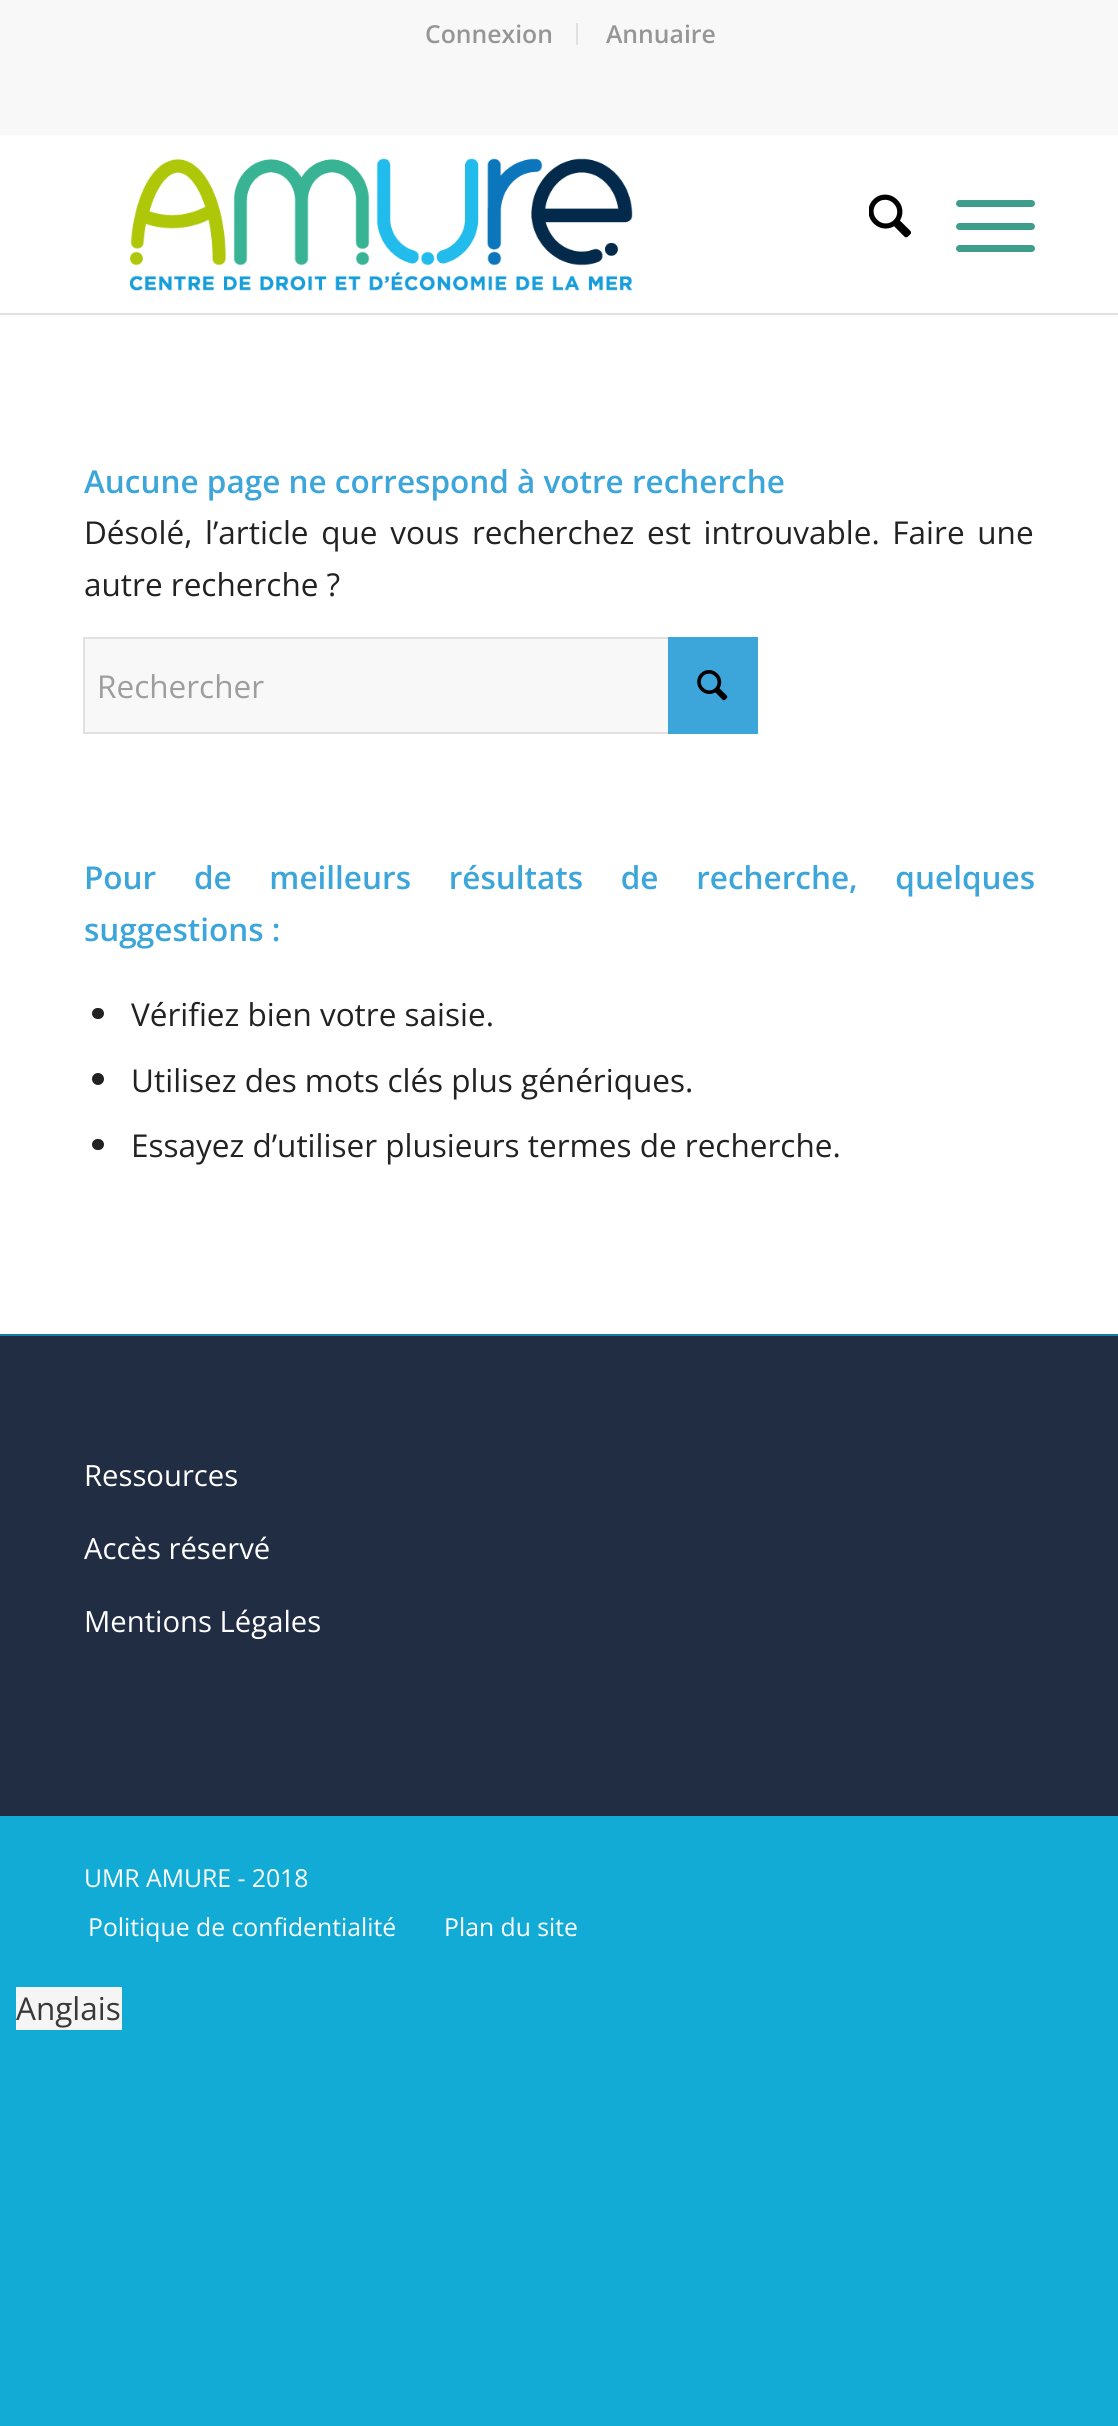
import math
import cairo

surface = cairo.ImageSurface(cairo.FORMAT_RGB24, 1118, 2426)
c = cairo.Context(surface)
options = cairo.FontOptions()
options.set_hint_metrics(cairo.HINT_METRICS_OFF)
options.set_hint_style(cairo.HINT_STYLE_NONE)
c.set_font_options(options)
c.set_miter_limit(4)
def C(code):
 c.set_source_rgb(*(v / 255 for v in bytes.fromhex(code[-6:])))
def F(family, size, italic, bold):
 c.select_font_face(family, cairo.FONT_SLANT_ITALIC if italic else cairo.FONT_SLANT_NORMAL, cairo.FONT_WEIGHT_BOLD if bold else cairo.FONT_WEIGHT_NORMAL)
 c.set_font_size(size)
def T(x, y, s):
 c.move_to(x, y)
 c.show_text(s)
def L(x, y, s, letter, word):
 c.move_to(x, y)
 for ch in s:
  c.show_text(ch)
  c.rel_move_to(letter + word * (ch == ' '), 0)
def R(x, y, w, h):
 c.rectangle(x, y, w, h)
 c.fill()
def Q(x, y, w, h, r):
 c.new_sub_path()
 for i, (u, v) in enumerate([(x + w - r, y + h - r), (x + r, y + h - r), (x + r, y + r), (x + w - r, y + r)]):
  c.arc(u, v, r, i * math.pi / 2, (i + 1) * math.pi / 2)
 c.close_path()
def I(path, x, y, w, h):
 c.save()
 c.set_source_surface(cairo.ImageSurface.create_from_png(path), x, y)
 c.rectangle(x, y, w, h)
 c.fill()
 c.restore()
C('11abd6')
c.paint()
C('ffffff')
R(0,135,1118,1199)
C('f8f8f8')
R(0,0,1118,135)
C('e1e1e1')
R(576,23,2,22)
F('Open Sans SemiBold',24.75,0,0)
C('969696')
T(425,43,'Connexion')
T(606,43,'Annuaire')
I('1.png',130,158,503,133)
I('2.png',869,194,42,44)
C('3f9d8c')
Q(956,223,79,7,3.5)
c.fill()
Q(956,200,79,7,3.5)
c.fill()
Q(956,245,79,7,3.5)
c.fill()
C('e1e1e1')
R(0,313,1118,2)
F('Open Sans SemiBold',31.5,0,0)
C('3ca5da')
T(84,493,'Aucune page ne correspond à votre recherche')
F('Open Sans',31.5,0,0)
C('222222')
L(84,544,'Désolé, l’article que vous recherchez est introuvable. Faire une',0,4.5)
T(84,596,'autre recherche ?')
C('f8f8f8')
R(85,639,583,93)
c.rectangle(84,638,673,95)
C('e1e1e1')
c.stroke()
C('3ca5da')
R(668,637,90,97)
C('9e9e9e')
T(97,698,'Rechercher')
I('3.png',697,670,31,31)
F('Open Sans SemiBold',31.5,0,0)
C('3ca5da')
L(84,889,'Pour de meilleurs résultats de recherche, quelques',0,29.5)
T(84,941,'suggestions :')
C('222222')
Q(92,1008,12,11,5.5)
c.fill()
F('Open Sans',31.5,0,0)
T(131,1026,'Vérifiez bien votre saisie.')
c.new_path()
c.arc(98,1079,6,0,2 * math.pi)
c.fill()
T(131,1092,'Utilisez des mots clés plus génériques.')
Q(92,1139,12,11,5.5)
c.fill()
T(131,1157,'Essayez d’utiliser plusieurs termes de recherche.')
C('212d43')
R(0,1336,1118,480)
C('0f81a1')
R(0,1334,1118,2)
F('Open Sans',29.25,0,0)
C('ffffff')
T(84,1486,'Ressources')
T(84,1559,'Accès réservé')
T(84,1632,'Mentions Légales')
F('Open Sans',24.75,0,0)
T(84,1887,'UMR AMURE - 2018')
T(88,1936,'Politique de confidentialité')
T(444,1936,'Plan du site')
C('f5f5f5')
R(16,1987,106,43)
F('Open Sans',31.5,0,0)
C('393939')
T(16,2020,'Anglais')
surface.write_to_png('o.png')
